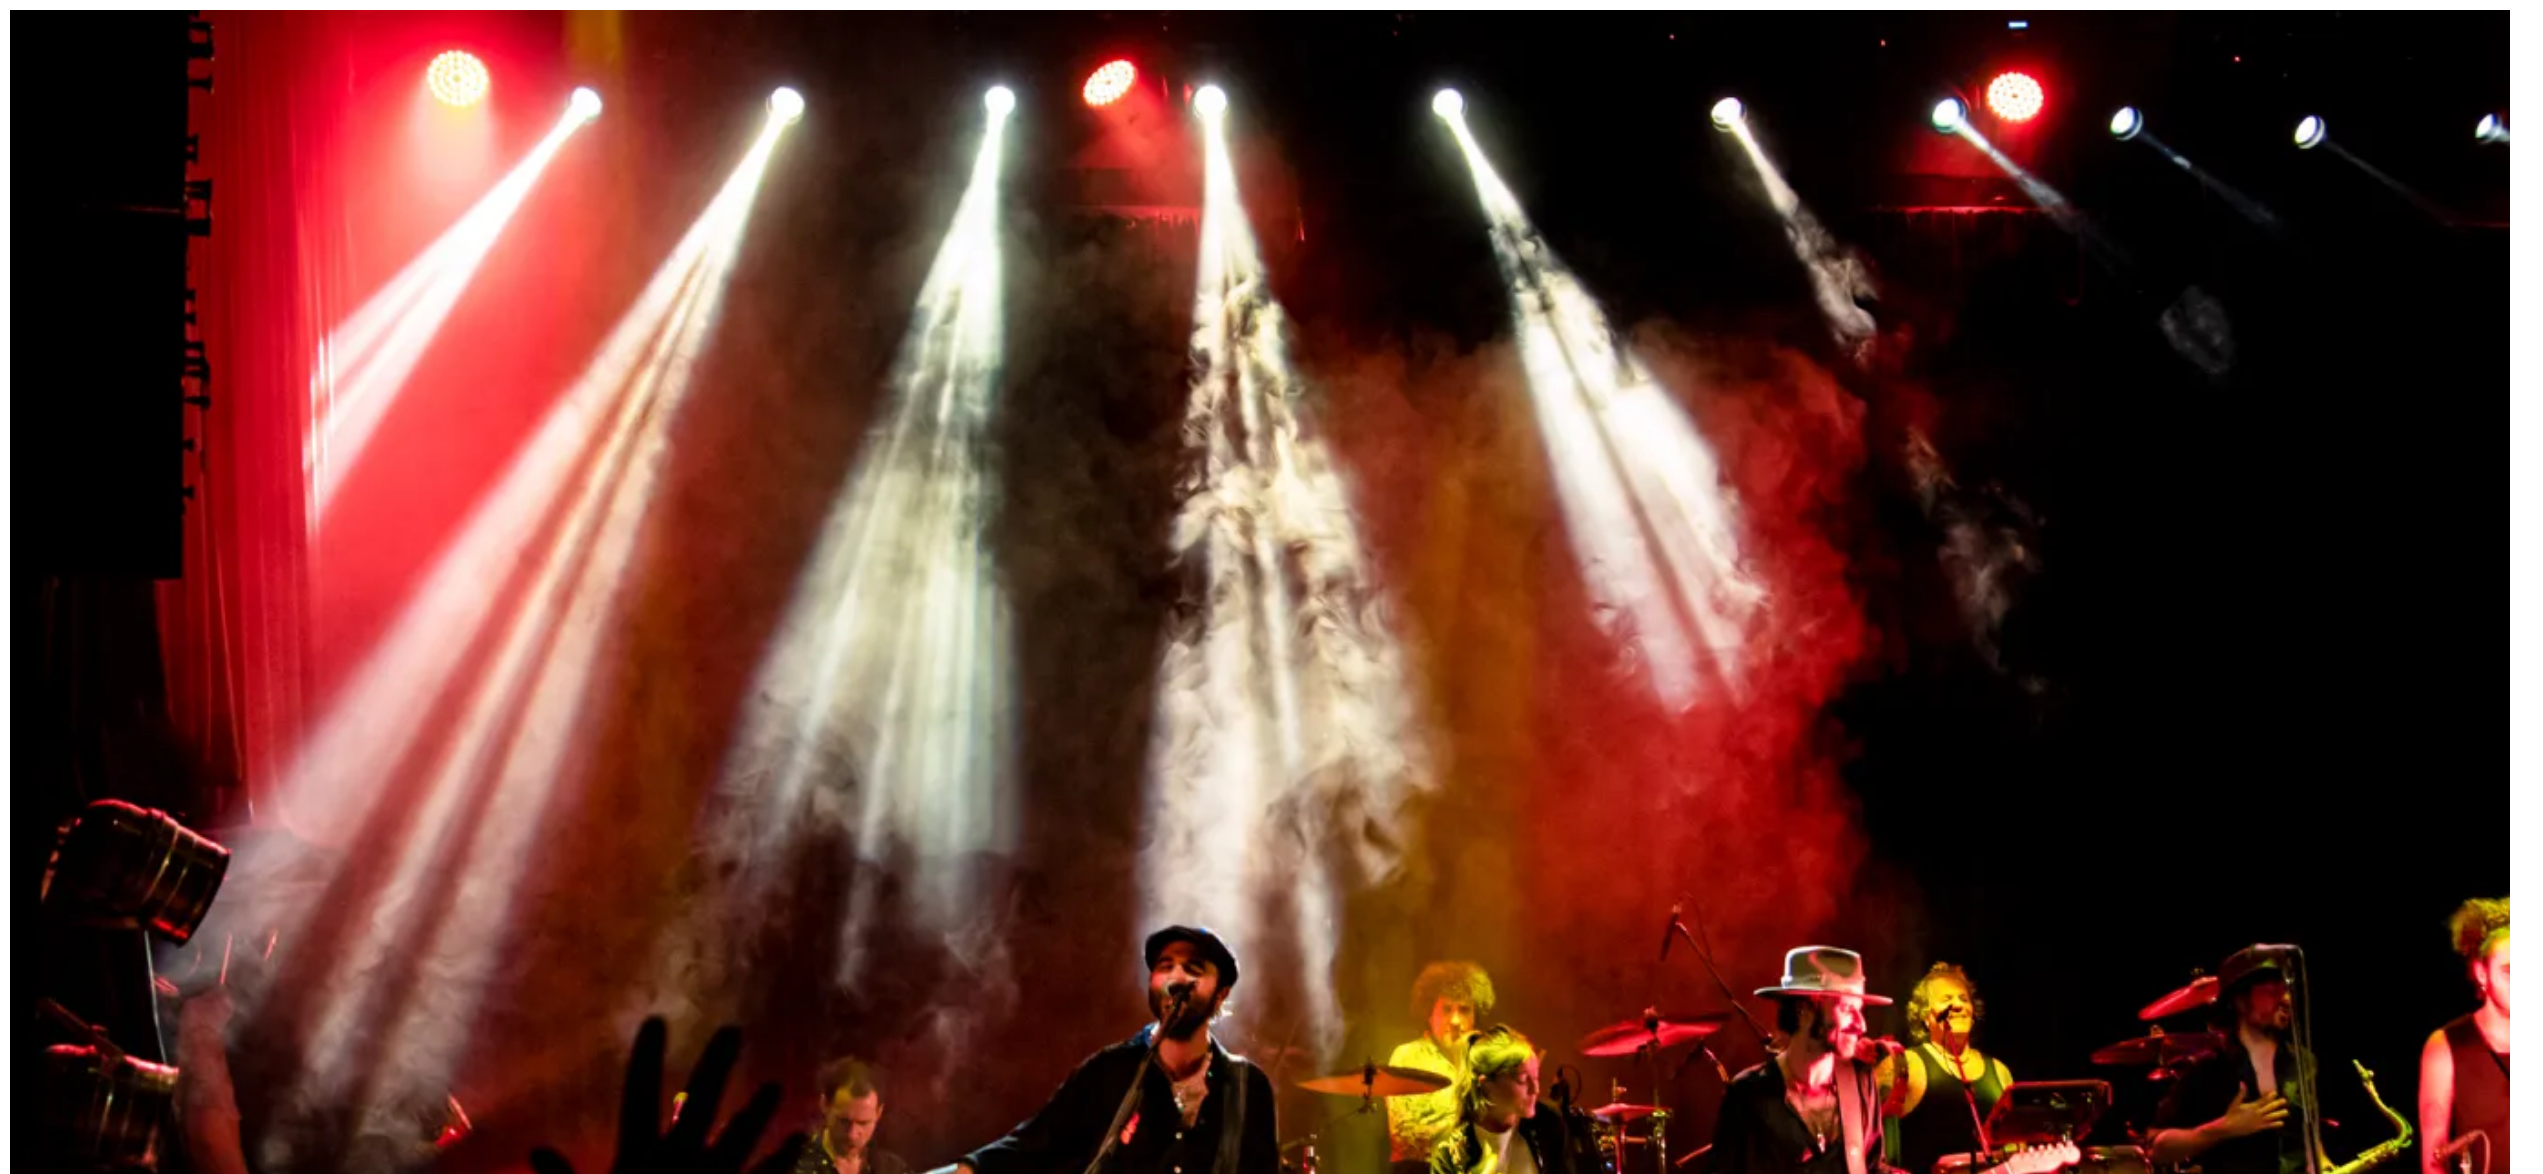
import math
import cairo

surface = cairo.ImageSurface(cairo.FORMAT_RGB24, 2543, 1174)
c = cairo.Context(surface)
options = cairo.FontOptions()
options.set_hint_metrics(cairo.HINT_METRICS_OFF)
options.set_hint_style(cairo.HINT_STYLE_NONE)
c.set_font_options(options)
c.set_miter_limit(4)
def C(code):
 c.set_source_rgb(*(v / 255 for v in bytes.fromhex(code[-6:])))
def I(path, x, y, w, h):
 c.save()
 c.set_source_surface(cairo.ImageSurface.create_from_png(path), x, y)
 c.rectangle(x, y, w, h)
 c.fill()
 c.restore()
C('ffffff')
c.paint()
I('1.png',10,10,2500,1164)
surface.write_to_png('o.png')
